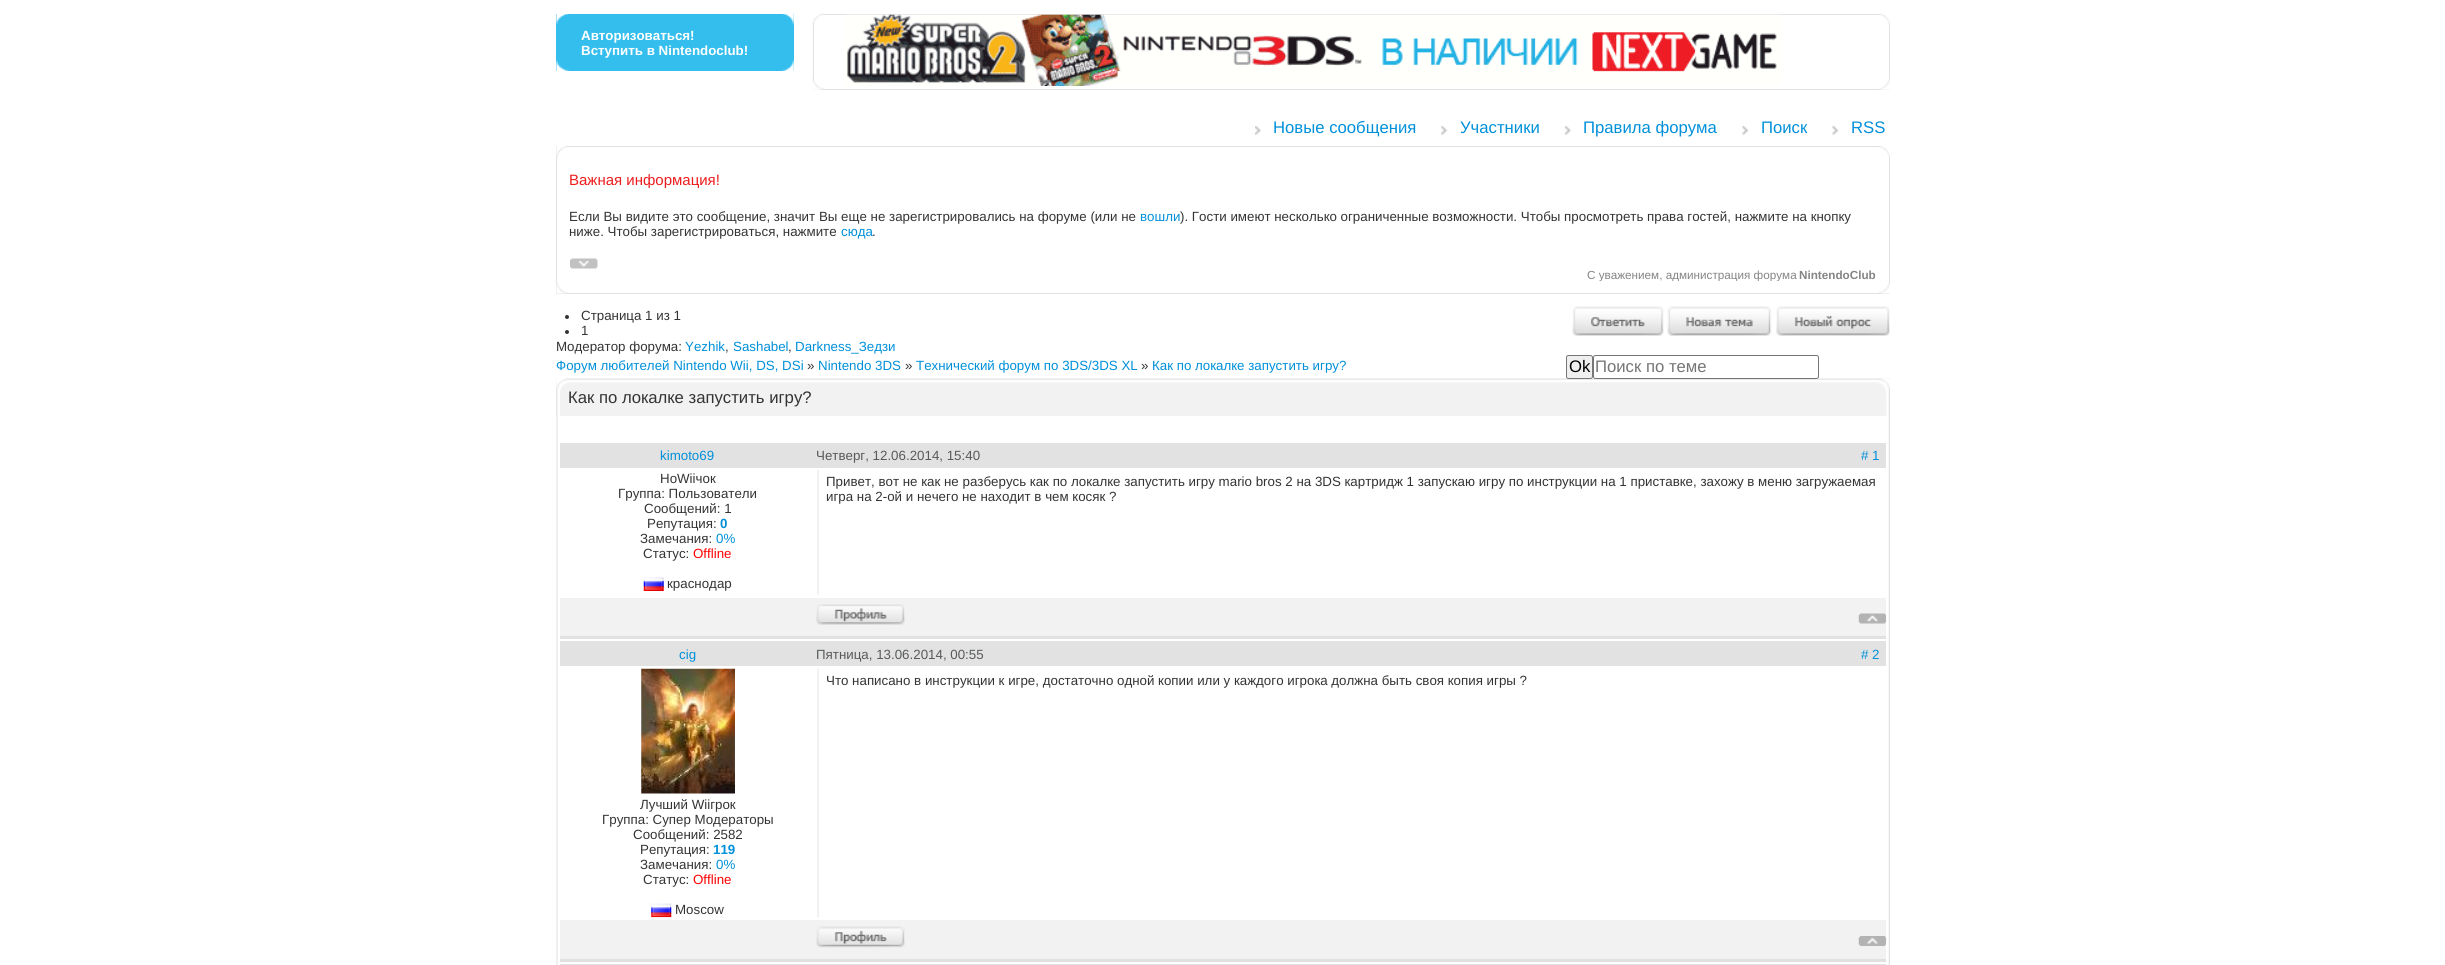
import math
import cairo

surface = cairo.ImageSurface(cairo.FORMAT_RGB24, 2445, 965)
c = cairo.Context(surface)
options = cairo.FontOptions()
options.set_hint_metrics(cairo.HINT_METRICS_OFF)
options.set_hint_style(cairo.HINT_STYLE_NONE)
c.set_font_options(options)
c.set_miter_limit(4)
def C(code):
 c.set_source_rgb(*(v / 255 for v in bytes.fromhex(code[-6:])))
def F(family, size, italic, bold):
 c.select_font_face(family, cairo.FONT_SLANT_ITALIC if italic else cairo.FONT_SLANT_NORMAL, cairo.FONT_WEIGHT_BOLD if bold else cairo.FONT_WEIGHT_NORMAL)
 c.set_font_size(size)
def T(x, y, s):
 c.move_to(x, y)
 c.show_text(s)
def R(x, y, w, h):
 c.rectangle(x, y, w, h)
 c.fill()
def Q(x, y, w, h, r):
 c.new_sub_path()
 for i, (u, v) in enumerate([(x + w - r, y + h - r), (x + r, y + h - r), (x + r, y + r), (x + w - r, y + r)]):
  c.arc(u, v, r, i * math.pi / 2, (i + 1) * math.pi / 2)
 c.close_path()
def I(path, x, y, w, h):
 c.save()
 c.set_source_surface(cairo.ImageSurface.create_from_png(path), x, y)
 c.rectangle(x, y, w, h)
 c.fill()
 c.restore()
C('ffffff')
c.paint()
C('34beed')
R(556,14,238,57)
I('1.png',556,14,13,11)
I('2.png',782,14,12,11)
I('3.png',556,59,13,12)
I('4.png',782,59,12,12)
F('Liberation Sans',13.33,0,1)
C('ffffff')
T(581,40,'Авторизоваться!')
T(581,55,'Вступить в Nintendoclub!')
c.rectangle(813.5,14.5,1076,75)
C('e2e2e2')
c.set_line_width(1)
c.stroke()
I('5.png',812,13,11,12)
I('6.png',1879,13,11,12)
I('7.png',845,14,937,72)
I('8.png',812,78,12,12)
I('9.png',1879,79,11,11)
I('10.png',1255,126,7,9)
F('Liberation Sans',16.7,0,0)
C('0090da')
T(1273,133,'Новые сообщения')
I('11.png',1441,126,7,9)
T(1460,133,'Участники')
I('10.png',1565,126,7,9)
T(1583,133,'Правила форума')
I('12.png',1742,126,7,9)
T(1761,133,'Поиск')
I('13.png',1832,126,7,9)
T(1851,133,'RSS')
c.rectangle(556.5,146.5,1333,147)
C('e2e2e2')
c.stroke()
I('14.png',556,146,11,11)
I('15.png',1879,146,11,11)
F('Liberation Sans',15,0,0)
C('ed1d1e')
T(569,185,'Важная информация!')
F('Liberation Sans',13.33,0,0)
C('343434')
T(569,221,'Если Вы видите это сообщение, значит Вы еще не зарегистрировались на форуме (или не')
C('0090da')
T(1140,221,'вошли')
C('343434')
T(1180,221,'). Гости имеют несколько ограниченные возможности. Чтобы просмотреть права гостей, нажмите на кнопку')
T(569,236,'ниже. Чтобы зарегистрироваться, нажмите')
C('0090da')
T(841,236,'сюда')
C('343434')
T(872,236,'.')
I('16.png',570,258,28,11)
c.save()
c.rectangle(558,159,1331,122)
c.clip()
F('Liberation Sans',11.7,0,0)
C('848484')
T(1587,279,'С уважением, администрация форума')
c.restore()
F('Liberation Sans',11.7,0,1)
C('848484')
T(1799,279,'NintendoClub')
I('17.png',556,282,12,12)
I('18.png',1879,282,11,12)
C('343434')
c.arc(567,317,2,0,2 * math.pi)
c.fill()
F('Liberation Sans',13.33,0,0)
T(581,320,'Страница 1 из 1')
c.new_path()
c.arc(567,332,2,0,2 * math.pi)
c.fill()
T(581,335,'1')
I('19.png',1572,306,92,30)
I('20.png',1667,306,105,30)
I('21.png',1776,306,114,30)
T(556,351,'Модератор форума:')
C('0090da')
T(685,351,'Yezhik')
C('343434')
T(725,351,',')
C('0090da')
T(733,351,'Sashabel')
C('343434')
T(788,351,',')
C('0090da')
T(795,351,'Darkness_Зедзи')
T(556,370,'Форум любителей Nintendo Wii, DS, DSi')
C('343434')
T(807,370,'»')
C('0090da')
T(818,370,'Nintendo 3DS')
C('343434')
T(905,370,'»')
C('0090da')
T(916,370,'Технический форум по 3DS/3DS XL')
C('343434')
T(1141,370,'»')
C('0090da')
T(1152,370,'Как по локалке запустить игру?')
I('22.png',1888,378,2,587)
I('23.png',556,378,2,587)
I('24.png',556,378,1334,38)
C('efefef')
Q(1566.5,355.5,26,23,2)
c.fill_preserve()
C('767676')
c.stroke()
F('Liberation Sans',16.7,0,0)
C('000000')
T(1569,372,'Ok')
C('ffffff')
Q(1593.5,355.5,225,23,2)
c.fill_preserve()
C('767676')
c.stroke()
C('757575')
T(1595,372,'Поиск по теме')
C('343434')
T(568,403,'Как по локалке запустить игру?')
I('25.png',1878,378,12,38)
C('e2e2e2')
R(560,443,1326,25)
F('Liberation Sans',13.33,0,0)
C('0090da')
T(660,460,'kimoto69')
C('585a5a')
T(816,460,'Четверг, 12.06.2014, 15:40')
C('0090da')
T(1861,460,'# 1')
I('26.png',817,470,2,125)
C('343434')
T(660,483,'НоWiiчок')
T(618,498,'Группа: Пользователи')
T(644,513,'Сообщений: 1')
T(647,528,'Репутация:')
F('Liberation Sans',13.33,0,1)
C('0090da')
T(720,528,'0')
F('Liberation Sans',13.33,0,0)
C('343434')
T(640,543,'Замечания:')
C('0090da')
T(716,543,'0%')
C('343434')
T(643,558,'Статус:')
C('ff0000')
T(693,558,'Offline')
I('27.png',643,577,21,14)
C('343434')
T(667,588,'краснодар')
T(826,486,'Привет, вот не как не разберусь как по локалке запустить игру mario bros 2 на 3DS картридж 1 запускаю игру по инструкции на 1 приставке, захожу в меню загружаемая')
T(826,501,'игра на 2-ой и нечего не находит в чем косяк ?')
C('f2f2f2')
R(560,598,1326,38)
C('e1e1e1')
R(560,636,1326,3)
I('28.png',816,604,89,21)
I('29.png',1858,613,29,11)
C('e2e2e2')
R(560,641,1326,25)
C('0090da')
T(679,659,'cig')
C('585a5a')
T(816,659,'Пятница, 13.06.2014, 00:55')
C('0090da')
T(1861,659,'# 2')
I('30.png',817,668,2,249)
C('343434')
T(826,685,'Что написано в инструкции к игре, достаточно одной копии или у каждого игрока должна быть своя копия игры ?')
I('31.png',641,668,94,126)
T(640,809,'Лучший Wiiгрок')
T(602,824,'Группа: Супер Модераторы')
T(633,839,'Сообщений: 2582')
T(640,854,'Репутация:')
F('Liberation Sans',13.33,0,1)
C('0090da')
T(713,854,'119')
F('Liberation Sans',13.33,0,0)
C('343434')
T(640,869,'Замечания:')
C('0090da')
T(716,869,'0%')
C('343434')
T(643,884,'Статус:')
C('ff0000')
T(693,884,'Offline')
I('32.png',651,903,21,15)
C('343434')
T(675,914,'Moscow')
C('f2f2f2')
R(560,920,1326,39)
C('e1e1e1')
R(560,959,1326,3)
I('33.png',816,926,89,22)
I('34.png',1858,936,29,10)
C('e2e2e2')
R(560,964,1326,1)
surface.write_to_png('o.png')
